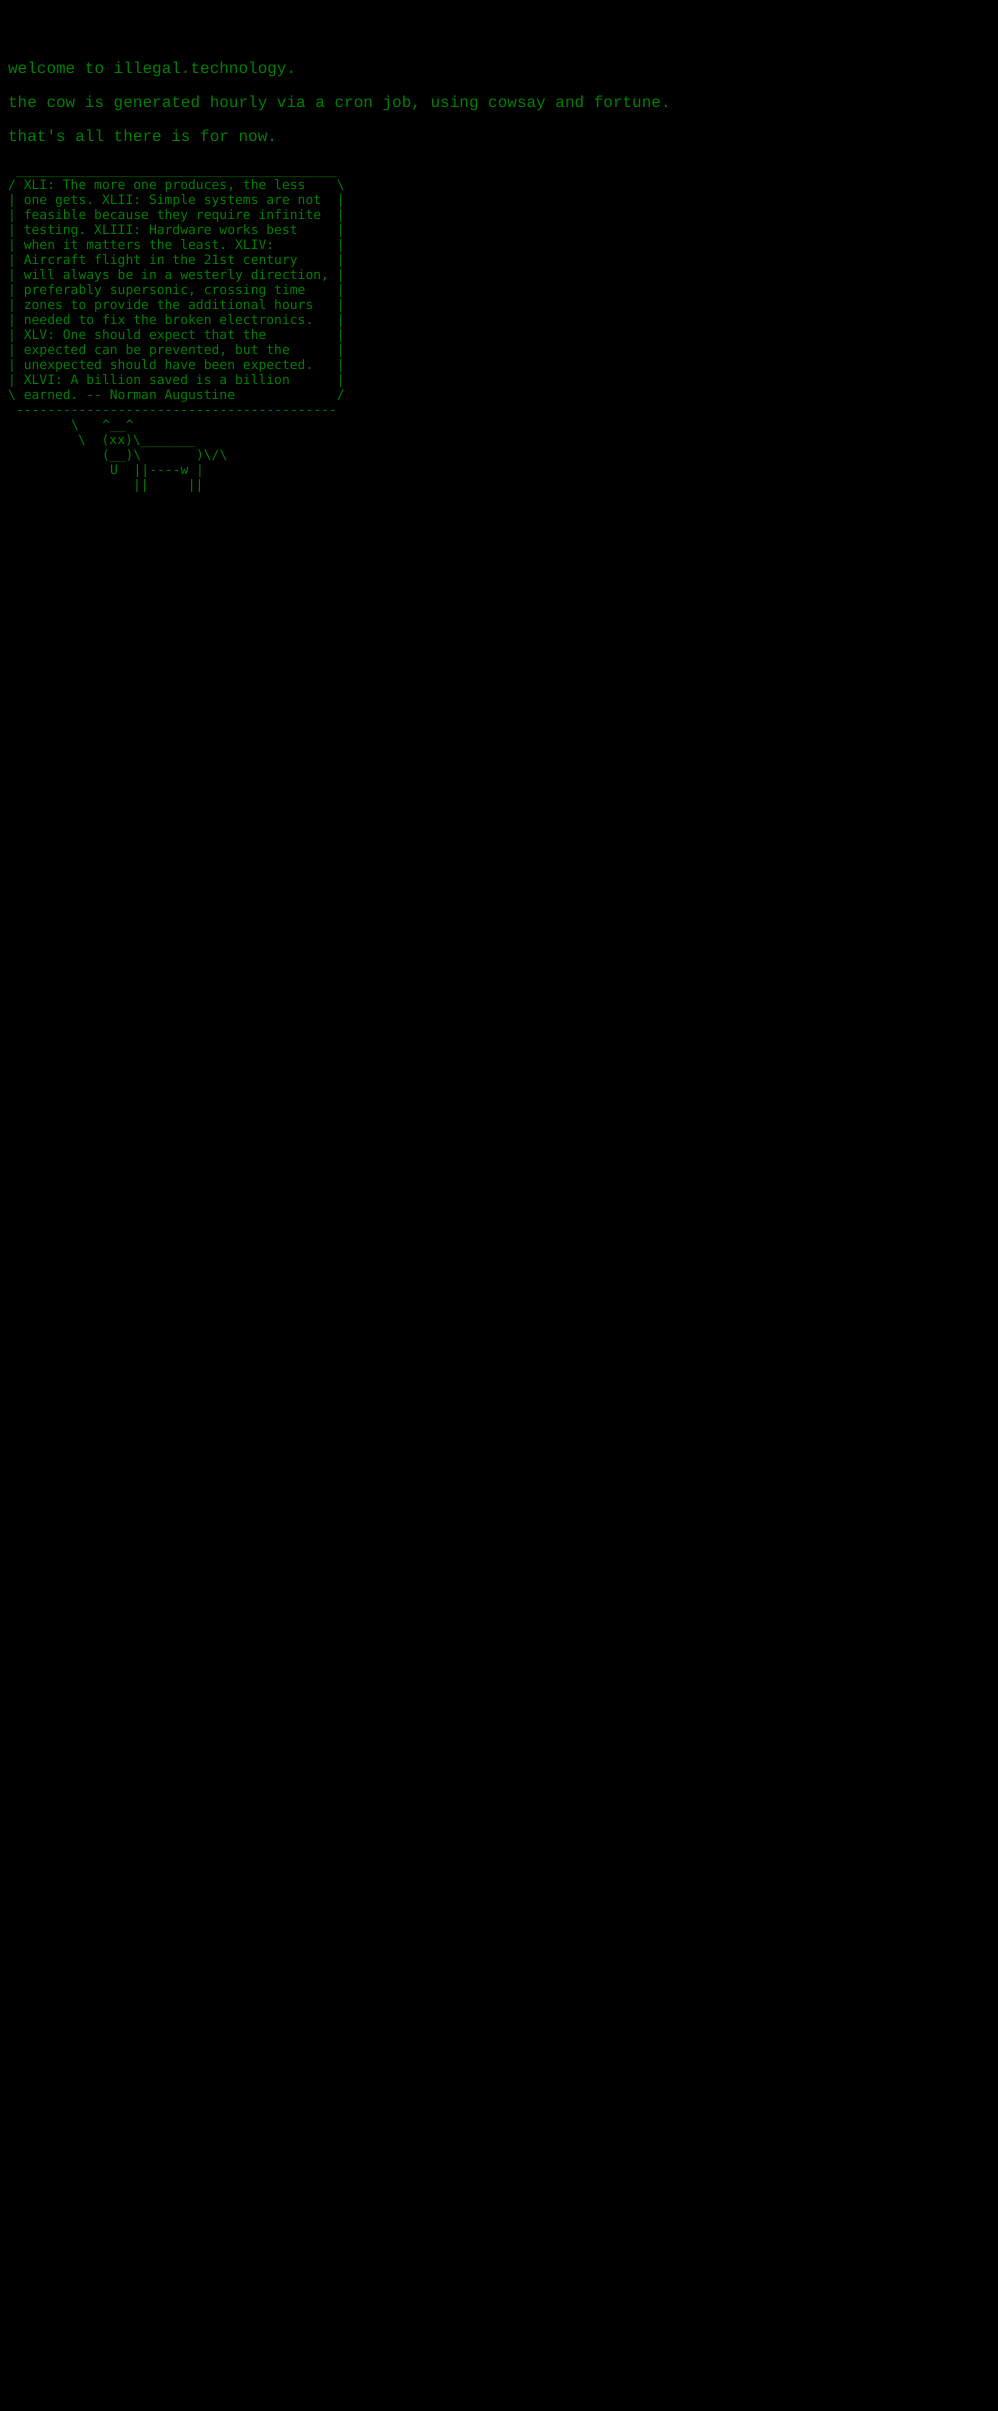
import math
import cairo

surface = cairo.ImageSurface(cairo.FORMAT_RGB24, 998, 2411)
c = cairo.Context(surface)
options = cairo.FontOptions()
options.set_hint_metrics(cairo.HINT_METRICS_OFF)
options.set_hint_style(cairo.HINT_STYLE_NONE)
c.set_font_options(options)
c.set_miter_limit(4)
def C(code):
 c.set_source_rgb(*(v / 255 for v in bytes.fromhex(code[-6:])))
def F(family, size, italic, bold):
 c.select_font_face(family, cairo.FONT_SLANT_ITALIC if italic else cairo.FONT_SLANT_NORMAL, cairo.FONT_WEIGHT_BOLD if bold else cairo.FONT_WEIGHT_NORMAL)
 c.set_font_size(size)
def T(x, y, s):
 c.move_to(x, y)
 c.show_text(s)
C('000000')
c.paint()
F('Liberation Mono',16,0,0)
C('008000')
T(8,73,'welcome to illegal.technology.')
T(8,107,'the cow is generated hourly via a cron job, using cowsay and fortune.')
T(8,141,'that\'s all there is for now.')
F('DejaVu Sans Mono',13,0,0)
T(16,174,'_________________________________________')
T(8,189,'/ XLI: The more one produces, the less    \\')
T(8,204,'| one gets. XLII: Simple systems are not  |')
T(8,219,'| feasible because they require infinite  |')
T(8,234,'| testing. XLIII: Hardware works best     |')
T(8,249,'| when it matters the least. XLIV:        |')
T(8,264,'| Aircraft flight in the 21st century     |')
T(8,279,'| will always be in a westerly direction, |')
T(8,294,'| preferably supersonic, crossing time    |')
T(8,309,'| zones to provide the additional hours   |')
T(8,324,'| needed to fix the broken electronics.   |')
T(8,339,'| XLV: One should expect that the         |')
T(8,354,'| expected can be prevented, but the      |')
T(8,369,'| unexpected should have been expected.   |')
T(8,384,'| XLVI: A billion saved is a billion      |')
T(8,399,'\\ earned. -- Norman Augustine             /')
T(16,414,'-----------------------------------------')
T(71,429,'\\   ^__^')
T(78,444,'\\  (xx)\\_______')
T(102,459,'(__)\\       )\\/\\')
T(110,474,'U  ||----w |')
T(133,489,'||     ||')
surface.write_to_png('o.png')
